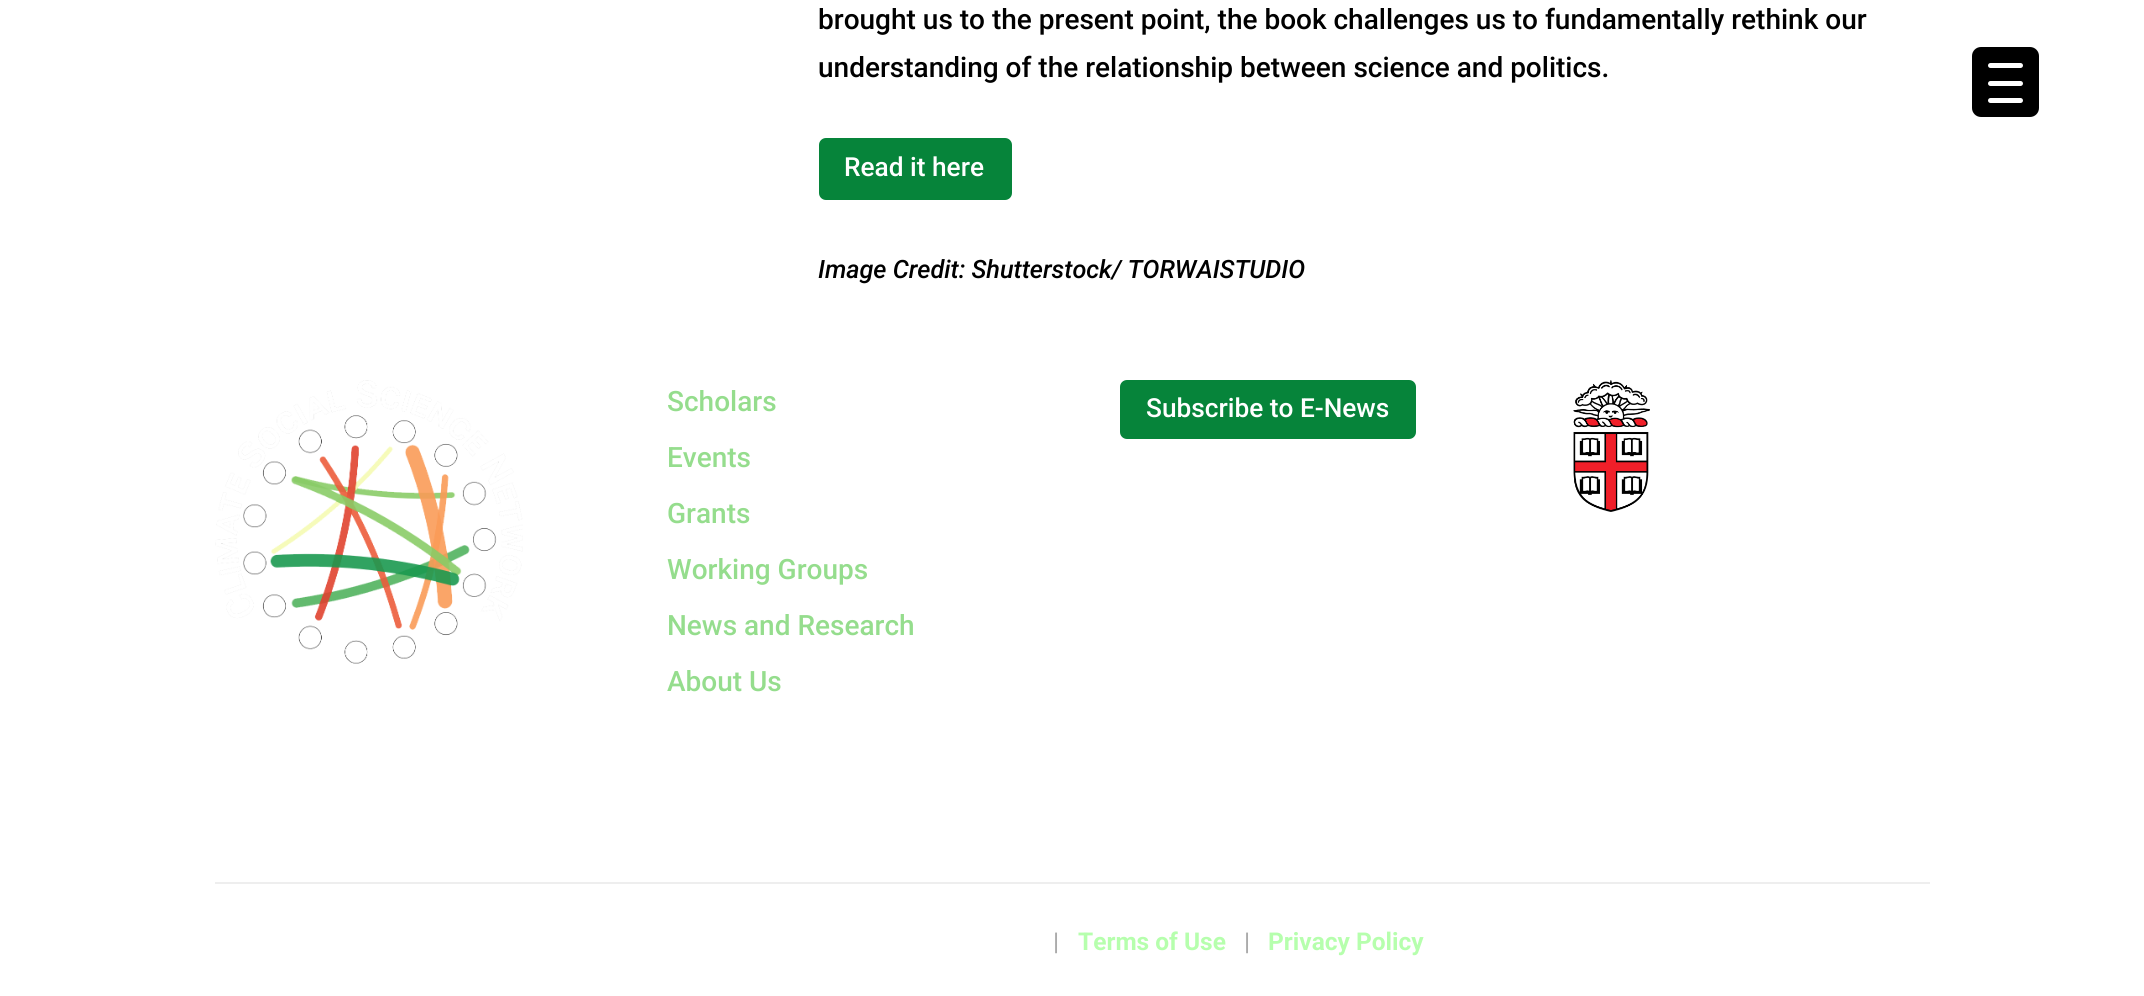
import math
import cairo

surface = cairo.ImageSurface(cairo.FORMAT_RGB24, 2144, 996)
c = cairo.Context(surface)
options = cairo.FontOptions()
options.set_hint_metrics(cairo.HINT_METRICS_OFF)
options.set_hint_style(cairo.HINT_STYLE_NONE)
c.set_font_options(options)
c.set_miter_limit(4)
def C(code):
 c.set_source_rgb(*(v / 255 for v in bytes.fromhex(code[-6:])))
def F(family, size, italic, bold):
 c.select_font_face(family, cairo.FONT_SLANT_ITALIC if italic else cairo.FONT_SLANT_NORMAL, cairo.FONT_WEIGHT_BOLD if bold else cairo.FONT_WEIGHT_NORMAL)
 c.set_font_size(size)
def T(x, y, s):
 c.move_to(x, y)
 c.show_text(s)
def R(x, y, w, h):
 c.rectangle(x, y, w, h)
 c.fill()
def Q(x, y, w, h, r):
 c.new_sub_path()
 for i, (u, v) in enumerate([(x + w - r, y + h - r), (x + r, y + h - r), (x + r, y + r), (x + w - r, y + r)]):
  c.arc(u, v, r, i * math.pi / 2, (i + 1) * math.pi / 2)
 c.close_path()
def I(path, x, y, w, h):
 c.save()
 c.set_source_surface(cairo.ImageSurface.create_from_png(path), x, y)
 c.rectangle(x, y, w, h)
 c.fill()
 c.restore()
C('ffffff')
c.paint()
F('Roboto Medium',28,0,0)
C('000000')
T(818,29,'brought us to the present point, the book challenges us to fundamentally rethink our')
T(818,77,'understanding of the relationship between science and politics.')
C('06843a')
Q(819,138,193,62,7)
c.fill()
F('Roboto Medium',26.25,0,0)
C('ffffff')
T(844,176,'Read it here')
F('Roboto Medium',25.25,1,0)
C('000000')
T(818,278,'Image Credit: Shutterstock/ TORWAISTUDIO')
I('1.png',215,380,308,284)
F('Roboto Medium',28,0,0)
C('95dd8d')
T(667,411,'Scholars')
T(667,467,'Events')
T(667,523,'Grants')
T(667,579,'Working Groups')
T(667,635,'News and Research')
T(667,691,'About Us')
C('06843a')
Q(1120,380,296,59,7)
c.fill()
F('Roboto Medium',26.25,0,0)
C('ffffff')
T(1146,417,'Subscribe to E-News')
I('2.png',1573,380,77,132)
C('eeeeee')
R(215,882,1715,2)
F('Roboto Medium',24.5,0,0)
C('ababab')
T(1053,950,'|')
F('Roboto',24.5,0,1)
C('b6ffad')
T(1078,950,'Terms of Use')
F('Roboto Medium',24.5,0,0)
C('ababab')
T(1244,950,'|')
F('Roboto',24.5,0,1)
C('b6ffad')
T(1268,950,'Privacy Policy')
C('000000')
Q(1972,47,67,70,9)
c.fill()
C('ffffff')
Q(1988,81,35,5,2.5)
c.fill()
Q(1988,63,35,5,2.5)
c.fill()
Q(1988,98,35,5,2.5)
c.fill()
surface.write_to_png('o.png')
